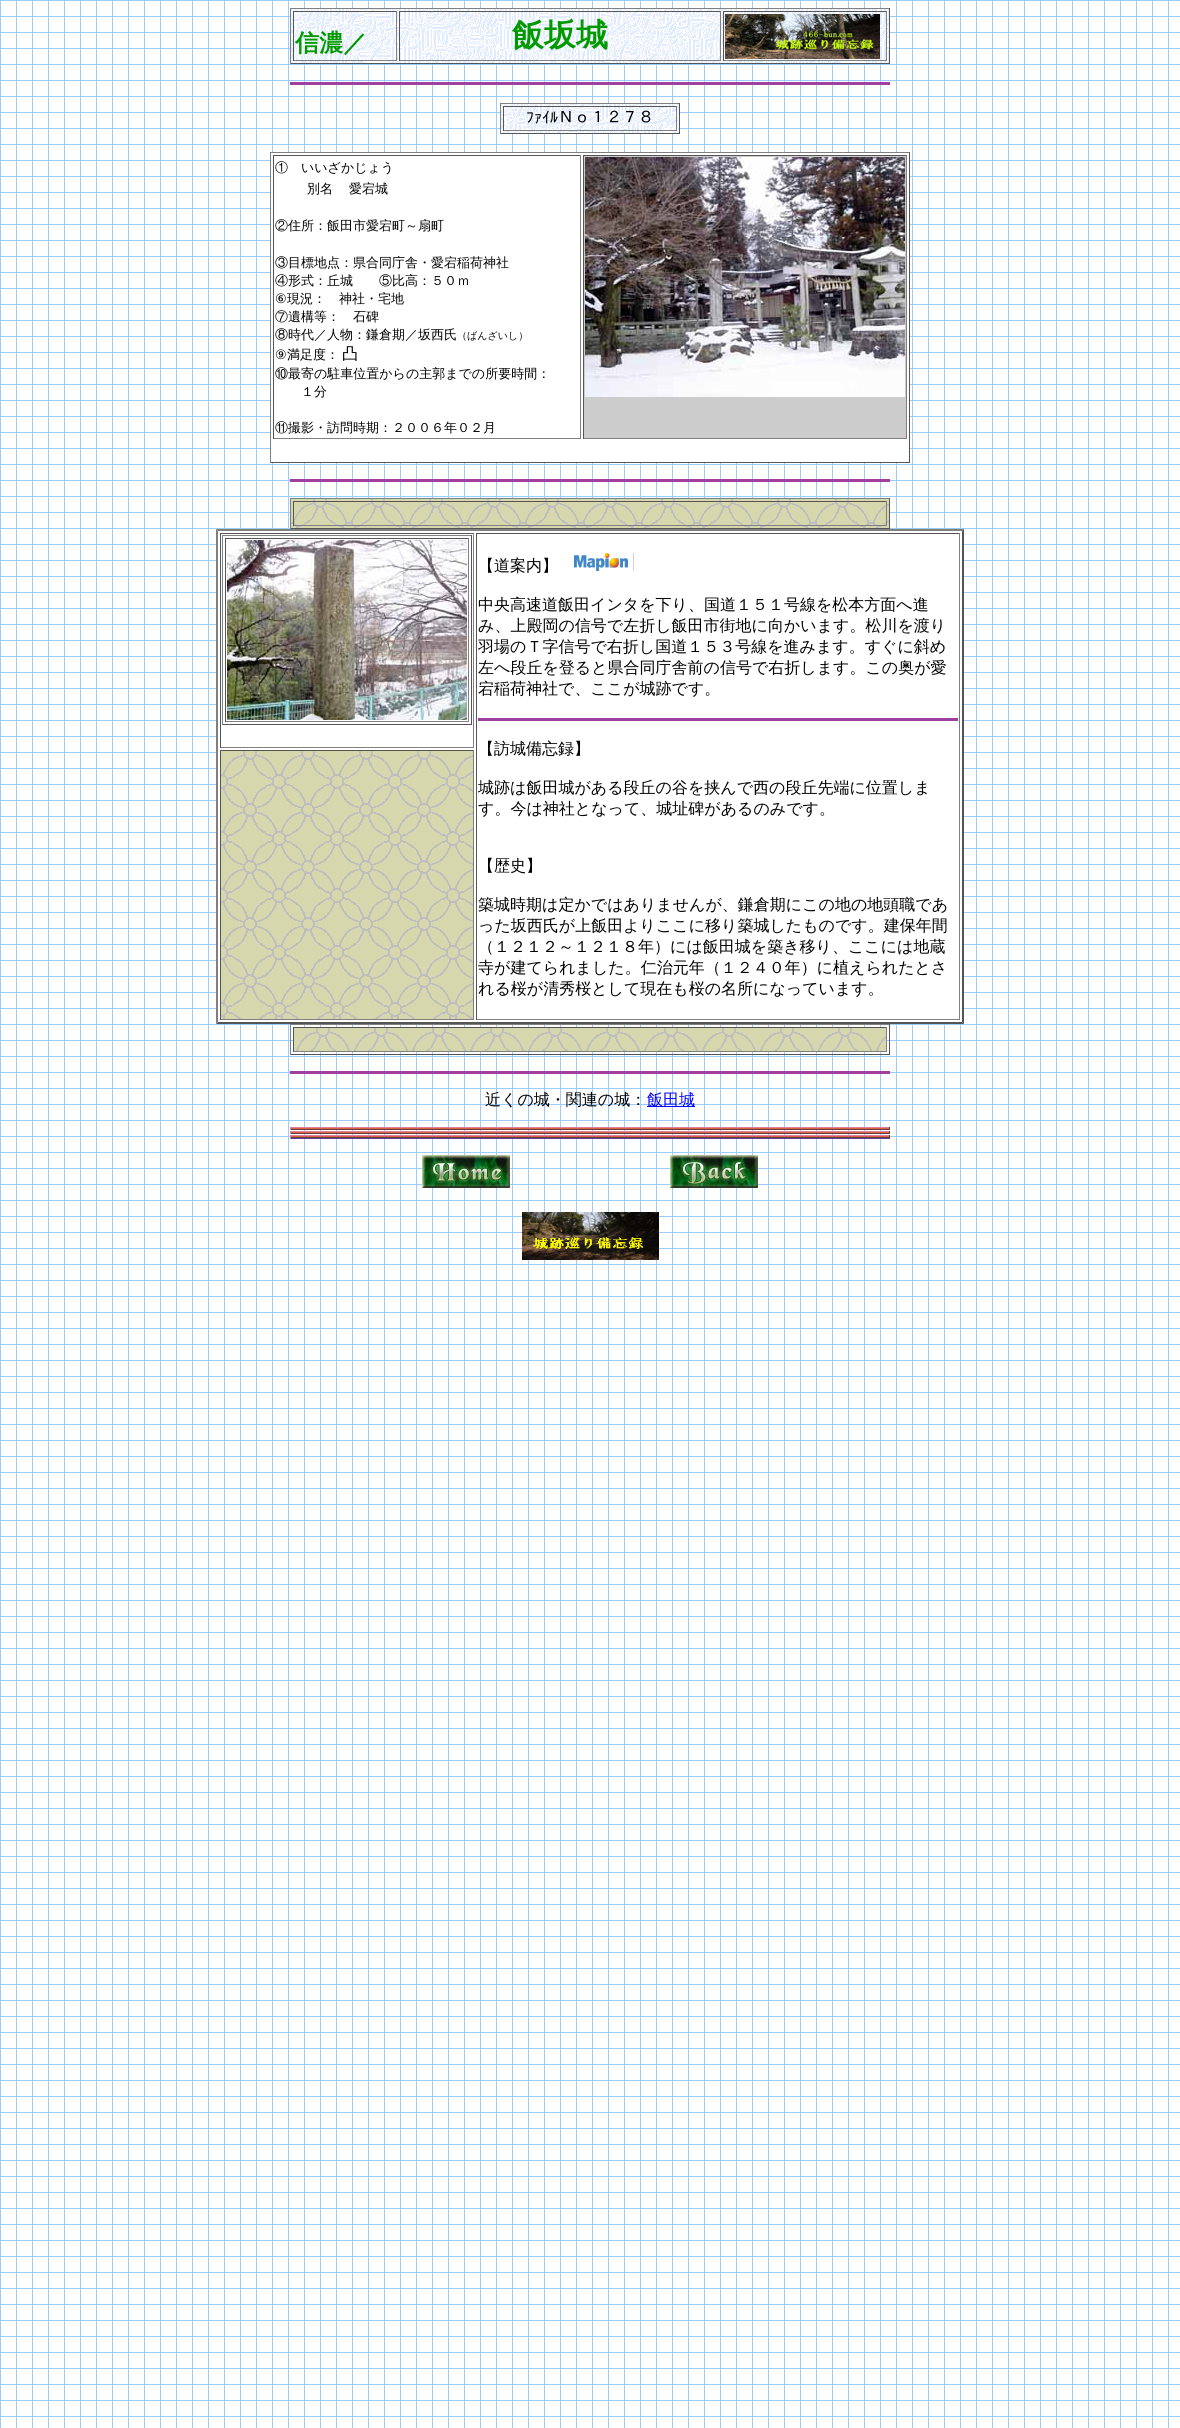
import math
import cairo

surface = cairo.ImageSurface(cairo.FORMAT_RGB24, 1180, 2428)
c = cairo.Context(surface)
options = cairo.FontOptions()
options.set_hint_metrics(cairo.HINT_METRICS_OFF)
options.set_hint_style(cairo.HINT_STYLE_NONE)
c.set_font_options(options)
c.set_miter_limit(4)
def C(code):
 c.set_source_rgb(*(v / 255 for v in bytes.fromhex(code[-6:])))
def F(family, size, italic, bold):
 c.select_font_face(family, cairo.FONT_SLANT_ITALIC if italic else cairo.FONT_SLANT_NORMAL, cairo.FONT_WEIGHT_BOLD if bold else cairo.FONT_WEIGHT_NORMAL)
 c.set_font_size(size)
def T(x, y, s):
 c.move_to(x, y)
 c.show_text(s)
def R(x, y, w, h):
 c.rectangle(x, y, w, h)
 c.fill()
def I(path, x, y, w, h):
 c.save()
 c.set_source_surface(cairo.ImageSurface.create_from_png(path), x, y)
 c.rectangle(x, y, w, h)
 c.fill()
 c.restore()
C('ffffff')
c.paint()
I('1.png',0,0,1180,2428)
I('2.png',291,9,598,54)
C('808080')
R(290,8,600,1)
C('555555')
R(889,8,1,56)
R(290,63,600,1)
C('808080')
R(290,8,1,56)
C('555555')
R(293,11,104,1)
C('808080')
R(396,11,1,50)
R(293,60,104,1)
C('555555')
R(293,11,1,50)
F('WenQuanYi Zen Hei',24,0,1)
C('009900')
T(295,51,'信濃／')
C('555555')
R(399,11,322,1)
C('808080')
R(720,11,1,50)
R(399,60,322,1)
C('555555')
R(399,11,1,50)
F('WenQuanYi Zen Hei',32,0,1)
C('009900')
T(512,46,'飯坂城')
C('555555')
R(723,11,164,1)
C('808080')
R(886,11,1,50)
R(723,60,164,1)
C('555555')
R(723,11,1,50)
I('3.png',725,14,155,45)
C('9f3f9f')
R(290,82,600,3)
I('4.png',501,104,178,29)
C('808080')
R(500,103,180,1)
C('555555')
R(679,103,1,31)
R(500,133,180,1)
C('808080')
R(500,103,1,31)
C('555555')
R(503,106,174,1)
C('808080')
R(676,106,1,25)
R(503,130,174,1)
C('555555')
R(503,106,1,25)
F('IPAGothic',16,0,0)
C('000000')
T(526,123,'ﾌｧｲﾙＮｏ１２７８')
C('ffffff')
R(271,153,638,309)
C('808080')
R(270,152,640,1)
C('555555')
R(909,152,1,311)
R(270,462,640,1)
C('808080')
R(270,152,1,311)
C('555555')
R(273,155,308,1)
C('808080')
R(580,155,1,284)
R(273,438,308,1)
C('555555')
R(273,155,1,284)
F('WenQuanYi Zen Hei Medium',13,0,0)
C('000000')
T(275,172,'①　いいざかじょう')
T(307,193,'別名')
T(349,193,'愛宕城')
T(275,230,'②住所：飯田市愛宕町～扇町')
T(275,267,'③目標地点：県合同庁舎・愛宕稲荷神社')
T(275,285,'④形式：丘城　　⑤比高：５０ｍ')
F('DejaVu Sans',13,0,0)
T(275,303,'⑥')
F('WenQuanYi Zen Hei Medium',13,0,0)
T(287,303,'現況：　神社・宅地')
T(275,321,'⑦遺構等：　石碑')
T(275,339,'⑧時代／人物：鎌倉期／坂西氏')
F('WenQuanYi Zen Hei Medium',10,0,0)
T(457,339,'（ばんざいし）')
F('DejaVu Sans',13,0,0)
T(275,359,'⑨')
F('WenQuanYi Zen Hei Medium',13,0,0)
T(287,359,'満足度：')
F('WenQuanYi Zen Hei Medium',16,0,0)
T(342,359,'凸')
F('WenQuanYi Zen Hei Medium',13,0,0)
T(275,378,'⑩最寄の駐車位置からの主郭までの所要時間：')
T(301,396,'１分')
T(275,432,'⑪撮影・訪問時期：２００６年０２月')
C('cccccc')
R(584,156,322,282)
C('555555')
R(583,155,324,1)
C('808080')
R(906,155,1,284)
R(583,438,324,1)
C('555555')
R(583,155,1,284)
I('5.png',585,157,320,240)
C('9f3f9f')
R(290,479,600,3)
I('6.png',291,499,598,29)
C('808080')
R(290,498,600,1)
C('555555')
R(889,498,1,31)
R(290,528,600,1)
C('808080')
R(290,498,1,31)
C('555555')
R(293,501,594,1)
C('808080')
R(886,501,1,25)
R(293,525,594,1)
C('555555')
R(293,501,1,25)
C('ffffff')
R(216,529,748,495)
C('808080')
c.new_path()
c.move_to(216,529)
c.line_to(964,529)
c.line_to(962,531)
c.line_to(218,531)
c.close_path()
c.fill()
C('555555')
c.new_path()
c.move_to(964,529)
c.line_to(964,1024)
c.line_to(962,1022)
c.line_to(962,531)
c.close_path()
c.fill()
c.new_path()
c.move_to(964,1024)
c.line_to(216,1024)
c.line_to(218,1022)
c.line_to(962,1022)
c.close_path()
c.fill()
C('808080')
c.new_path()
c.move_to(216,1024)
c.line_to(216,529)
c.line_to(218,531)
c.line_to(218,1022)
c.close_path()
c.fill()
I('7.png',221,751,252,268)
C('555555')
R(220,750,254,1)
C('808080')
R(473,750,1,270)
R(220,1019,254,1)
C('555555')
R(220,750,1,270)
R(220,533,254,1)
C('808080')
R(473,533,1,215)
R(220,747,254,1)
C('555555')
R(220,533,1,215)
C('808080')
R(222,535,250,1)
C('555555')
R(471,535,1,190)
R(222,724,250,1)
C('808080')
R(222,535,1,190)
C('555555')
R(225,538,244,1)
C('808080')
R(468,538,1,184)
R(225,721,244,1)
C('555555')
R(225,538,1,184)
I('8.png',227,540,240,180)
R(476,533,484,1)
C('808080')
R(959,533,1,487)
R(476,1019,484,1)
C('555555')
R(476,533,1,487)
F('WenQuanYi Zen Hei Medium',16,0,0)
C('000000')
T(478,571,'【道案内】')
I('9.png',574,553,60,18)
T(478,610,'中央高速道飯田インタを下り、国道１５１号線を松本方面へ進')
T(478,631,'み、上殿岡の信号で左折し飯田市街地に向かいます。松川を渡り')
T(478,652,'羽場のＴ字信号で右折し国道１５３号線を進みます。すぐに斜め')
T(478,673,'左へ段丘を登ると県合同庁舎前の信号で右折します。この奥が愛')
T(478,694,'宕稲荷神社で、ここが城跡です。')
C('9f3f9f')
R(478,718,480,3)
C('000000')
T(478,754,'【訪城備忘録】')
T(478,793,'城跡は飯田城がある段丘の谷を挟んで西の段丘先端に位置しま')
T(478,814,'す。今は神社となって、城址碑があるのみです。')
T(478,871,'【歴史】')
T(478,910,'築城時期は定かではありませんが、鎌倉期にこの地の地頭職であ')
T(478,931,'った坂西氏が上飯田よりここに移り築城したものです。建保年間')
T(478,952,'（１２１２～１２１８年）には飯田城を築き移り、ここには地蔵')
T(478,973,'寺が建てられました。仁治元年（１２４０年）に植えられたとさ')
T(478,994,'れる桜が清秀桜として現在も桜の名所になっています。')
C('808080')
R(290,1024,600,1)
C('555555')
R(889,1024,1,31)
R(290,1054,600,1)
C('808080')
R(290,1024,1,31)
I('10.png',294,1028,592,23)
C('555555')
R(293,1027,594,1)
C('808080')
R(886,1027,1,25)
R(293,1051,594,1)
C('555555')
R(293,1027,1,25)
C('9f3f9f')
R(290,1071,600,3)
C('000000')
T(485,1105,'近くの城・関連の城：')
C('0000ff')
R(647,1106,48,1)
T(647,1105,'飯田城')
I('11.png',290,1127,600,12)
I('12.png',422,1155,88,33)
I('13.png',670,1155,88,33)
I('14.png',522,1212,137,48)
surface.write_to_png('o.png')
